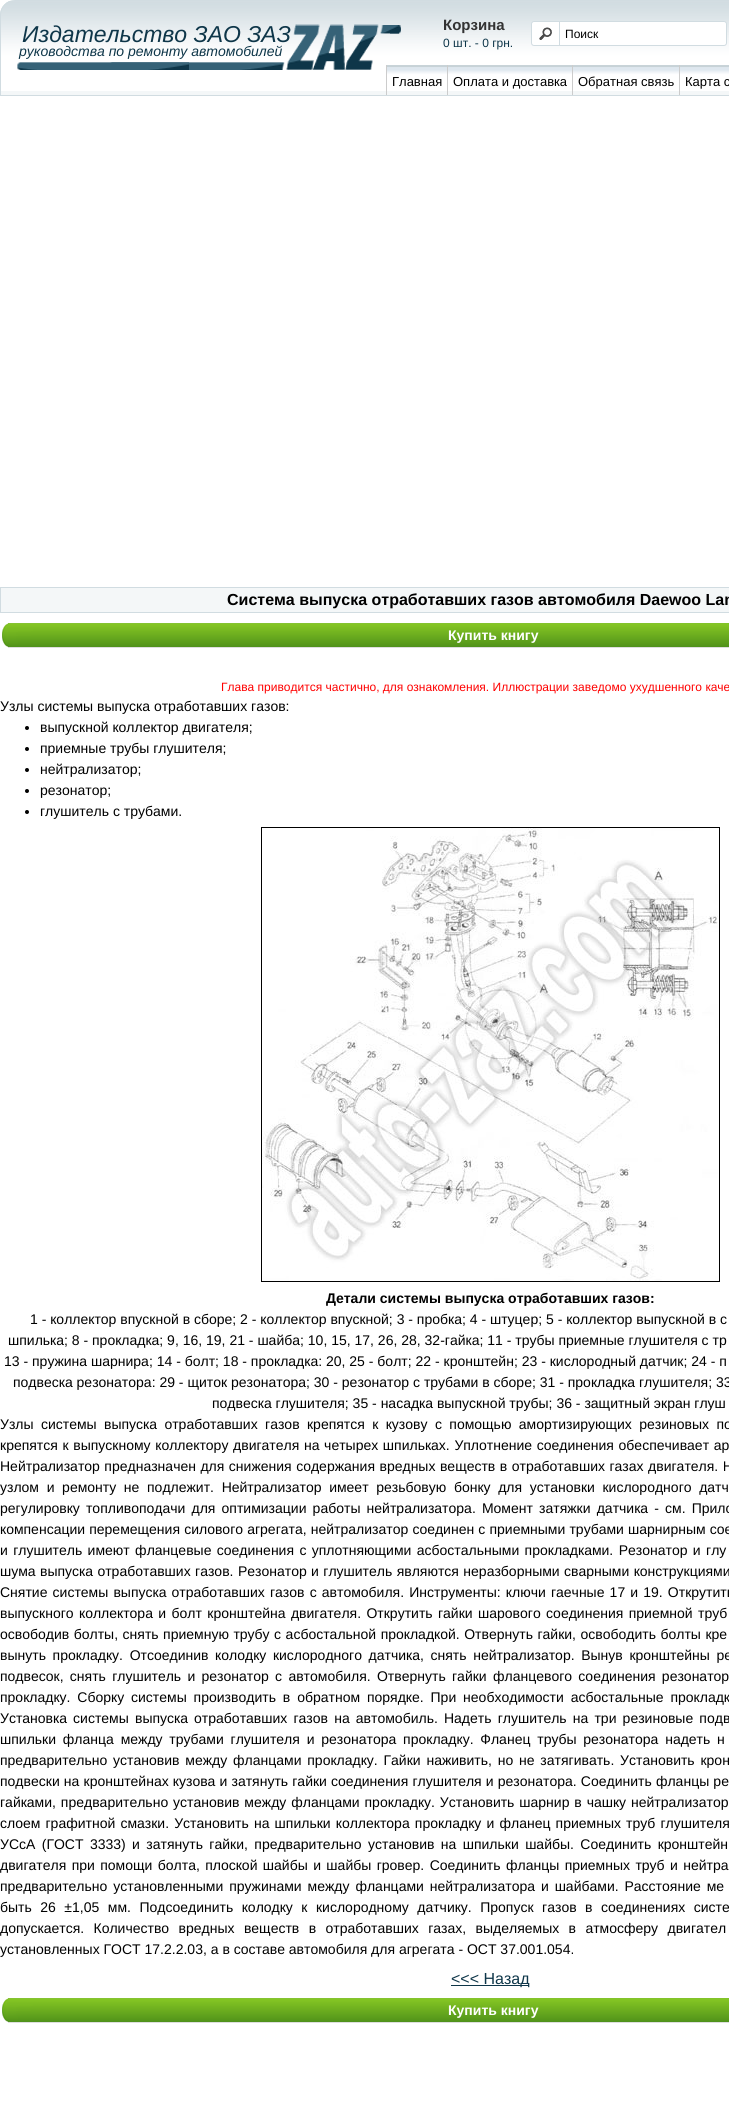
import math
import cairo

surface = cairo.ImageSurface(cairo.FORMAT_RGB24, 729, 2107)
c = cairo.Context(surface)
options = cairo.FontOptions()
options.set_hint_metrics(cairo.HINT_METRICS_OFF)
options.set_hint_style(cairo.HINT_STYLE_NONE)
c.set_font_options(options)
c.set_miter_limit(4)
def C(code):
 c.set_source_rgb(*(v / 255 for v in bytes.fromhex(code[-6:])))
def F(family, size, italic, bold):
 c.select_font_face(family, cairo.FONT_SLANT_ITALIC if italic else cairo.FONT_SLANT_NORMAL, cairo.FONT_WEIGHT_BOLD if bold else cairo.FONT_WEIGHT_NORMAL)
 c.set_font_size(size)
def T(x, y, s):
 c.move_to(x, y)
 c.show_text(s)
def L(x, y, s, letter, word):
 c.move_to(x, y)
 for ch in s:
  c.show_text(ch)
  c.rel_move_to(letter + word * (ch == ' '), 0)
def R(x, y, w, h):
 c.rectangle(x, y, w, h)
 c.fill()
def Q(x, y, w, h, r):
 c.new_sub_path()
 for i, (u, v) in enumerate([(x + w - r, y + h - r), (x + r, y + h - r), (x + r, y + r), (x + w - r, y + r)]):
  c.arc(u, v, r, i * math.pi / 2, (i + 1) * math.pi / 2)
 c.close_path()
def I(path, x, y, w, h):
 c.save()
 c.set_source_surface(cairo.ImageSurface.create_from_png(path), x, y)
 c.rectangle(x, y, w, h)
 c.fill()
 c.restore()
C('ffffff')
c.paint()
C('f4f7f8')
c.new_path()
c.move_to(15,0)
c.line_to(729,0)
c.curve_to(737.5,0,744,6.5,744,15)
c.line_to(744,96)
c.line_to(0,96)
c.line_to(0,15)
c.curve_to(0,6.5,6.5,0,15,0)
c.close_path()
c.fill()
I('1.png',0,1,729,90)
c.new_path()
c.move_to(15,.5)
c.line_to(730,.5)
c.curve_to(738,.5,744.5,7,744.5,15)
c.line_to(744.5,95.5)
c.line_to(.5,95.5)
c.line_to(.5,15)
c.curve_to(.5,7,7,.5,15,.5)
c.close_path()
C('d1dce1')
c.set_line_width(1)
c.stroke()
I('2.png',17,24,384,46)
F('Liberation Sans',23,1,0)
C('0e3649')
T(22,42,'Издательство ЗАО ЗАЗ')
F('Liberation Sans',14,1,0)
T(19,56,'руководства по ремонту автомобилей')
F('Liberation Sans',15,0,1)
C('333333')
T(443,30,'Корзина')
F('Liberation Sans',12,0,0)
C('0e3649')
T(443,47,'0 шт. - 0 грн.')
C('ffffff')
Q(531.5,21.5,195,24,2.5)
c.fill_preserve()
C('d1dce1')
c.stroke()
I('3.png',539,27,13,13)
R(559,21,1,24)
C('000000')
T(565,38,'Поиск')
I('4.png',387,65,342,25)
C('cccccc')
R(386,65,1,30)
F('Liberation Sans',13,0,0)
C('000000')
T(392,86,'Главная')
C('cccccc')
R(447,65,1,30)
C('000000')
T(453,86,'Оплата и доставка')
C('cccccc')
R(572,65,1,30)
C('000000')
T(578,86,'Обратная связь')
C('cccccc')
R(679,65,1,30)
C('000000')
T(685,86,'Карта с')
C('f4f7f8')
c.rectangle(.5,587.5,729,25)
c.fill_preserve()
C('d1dce1')
c.stroke()
F('Liberation Sans',16,0,1)
C('000000')
T(227,605,'Система выпуска отработавших газов автомобиля Daewoo Lan')
I('5.png',2,623,6,24)
I('6.png',8,623,721,25)
F('Liberation Sans',14,0,1)
C('ffffff')
T(448,640,'Купить книгу')
F('Liberation Sans',12,0,0)
C('ff0000')
T(221,691,'Глава приводится частично, для ознакомления. Иллюстрации заведомо ухудшенного каче')
F('Liberation Sans',14,0,0)
C('000000')
T(0,711,'Узлы системы выпуска отработавших газов:')
c.new_path()
c.arc(27,728,2,0,2 * math.pi)
c.fill()
T(40,732,'выпускной коллектор двигателя;')
c.new_path()
c.arc(27,749,2,0,2 * math.pi)
c.fill()
T(40,753,'приемные трубы глушителя;')
c.new_path()
c.arc(27,770,2,0,2 * math.pi)
c.fill()
T(40,774,'нейтрализатор;')
c.new_path()
c.arc(27,791,2,0,2 * math.pi)
c.fill()
T(40,795,'резонатор;')
c.new_path()
c.arc(27,812,2,0,2 * math.pi)
c.fill()
T(40,816,'глушитель с трубами.')
c.rectangle(261.5,827.5,458,454)
c.stroke()
I('7.png',262,828,456,453)
F('Liberation Sans',14,0,1)
T(326,1303,'Детали системы выпуска отработавших газов:')
F('Liberation Sans',14,0,0)
T(30,1324,'1 - коллектор впускной в сборе; 2 - коллектор впускной; 3 - пробка; 4 - штуцер; 5 - коллектор выпускной в с')
T(8,1345,'шпилька; 8 - прокладка; 9, 16, 19, 21 - шайба; 10, 15, 17, 26, 28, 32-гайка; 11 - трубы приемные глушителя с тр')
T(4,1366,'13 - пружина шарнира; 14 - болт; 18 - прокладка: 20, 25 - болт; 22 - кронштейн; 23 - кислородный датчик; 24 - п')
T(13,1387,'подвеска резонатора: 29 - щиток резонатора; 30 - резонатор с трубами в сборе; 31 - прокладка глушителя; 33')
T(212,1408,'подвеска глушителя; 35 - насадка выпускной трубы; 36 - защитный экран глуш')
L(0,1429,'Узлы системы выпуска отработавших газов крепятся к кузову с помощью амортизирующих резиновых по',0,3.5)
L(0,1450,'крепятся к выпускному коллектору двигателя на четырех шпильках. Уплотнение соединения обеспечивает ар',0,.75)
L(0,1471,'Нейтрализатор предназначен для снижения содержания вредных веществ в отработавших газах двигателя. Н',0,.6)
L(0,1492,'узлом и ремонту не подлежит. Нейтрализатор имеет резьбовую бонку для установки кислородного датч',0,3.75)
L(0,1513,'регулировку топливоподачи для оптимизации работы нейтрализатора. Момент затяжки датчика - см. Прило',0,2.25)
L(0,1534,'компенсации перемещения силового агрегата, нейтрализатор соединен с приемными трубами шарнирным сое',0,.25)
L(0,1555,'и глушитель имеют фланцевые соединения с уплотняющими асбостальными прокладками. Резонатор и глу',0,1.5)
L(0,1576,'шума выпуска отработавших газов. Резонатор и глушитель являются неразборными сварными конструкциями',0,.5)
L(0,1597,'Снятие системы выпуска отработавших газов с автомобиля. Инструменты: ключи гаечные 17 и 19. Открутить',0,1.25)
L(0,1618,'выпускного коллектора и болт кронштейна двигателя. Открутить гайки шарового соединения приемной труб',0,1.5)
L(0,1639,'освободив болты, снять приемную трубу с асбостальной прокладкой. Отвернуть гайки, освободить болты кре',0,.6)
L(0,1660,'вынуть прокладку. Отсоединив колодку кислородного датчика, снять нейтрализатор. Вынув кронштейны ре',0,2.75)
L(0,1681,'подвесок, снять глушитель и резонатор с автомобиля. Отвернуть гайки фланцевого соединения резонатор',0,2.4)
L(0,1702,'прокладку. Сборку системы производить в обратном порядке. При необходимости асбостальные прокладк',0,3)
L(0,1723,'Установка системы выпуска отработавших газов на автомобиль. Надеть глушитель на три резиновые подв',0,2.25)
L(0,1744,'шпильки фланца между трубами глушителя и резонатора прокладку. Фланец трубы резонатора надеть н',0,2.9)
L(0,1765,'предварительно установив между фланцами прокладку. Гайки наживить, но не затягивать. Установить крон',0,1.9)
L(0,1786,'подвески на кронштейнах кузова и затянуть гайки соединения глушителя и резонатора. Соединить фланцы ре',0,.25)
L(0,1807,'гайками, предварительно установив между фланцами прокладку. Установить шарнир в чашку нейтрализатор',0,1)
L(0,1828,'слоем графитной смазки. Установить на шпильки коллектора прокладку и фланец приемных труб глушителя',0,1.25)
L(0,1849,'УСсА (ГОСТ 3333) и затянуть гайки, предварительно установив на шпильки шайбы. Соединить кронштейн',0,2.5)
L(0,1870,'двигателя при помощи болта, плоской шайбы и шайбы гровер. Соединить фланцы приемных труб и нейтра',0,1.5)
L(0,1891,'предварительно установленными пружинами между фланцами нейтрализатора и шайбами. Расстояние ме',0,2)
L(0,1912,'быть 26 ±1,05 мм. Подсоединить колодку к кислородному датчику. Пропуск газов в соединениях систе',0,4.6)
L(0,1933,'допускается. Количество вредных веществ в отработавших газах, выделяемых в атмосферу двигател',0,5.5)
T(0,1954,'установленных ГОСТ 17.2.2.03, а в составе автомобиля для агрегата - ОСТ 37.001.054.')
C('0e3649')
R(451,1985,78,1)
F('Liberation Sans',16,0,0)
T(451,1984,'<<< Назад')
I('5.png',2,1998,6,24)
I('6.png',8,1998,721,25)
F('Liberation Sans',14,0,1)
C('ffffff')
T(448,2015,'Купить книгу')
surface.write_to_png('o.png')
